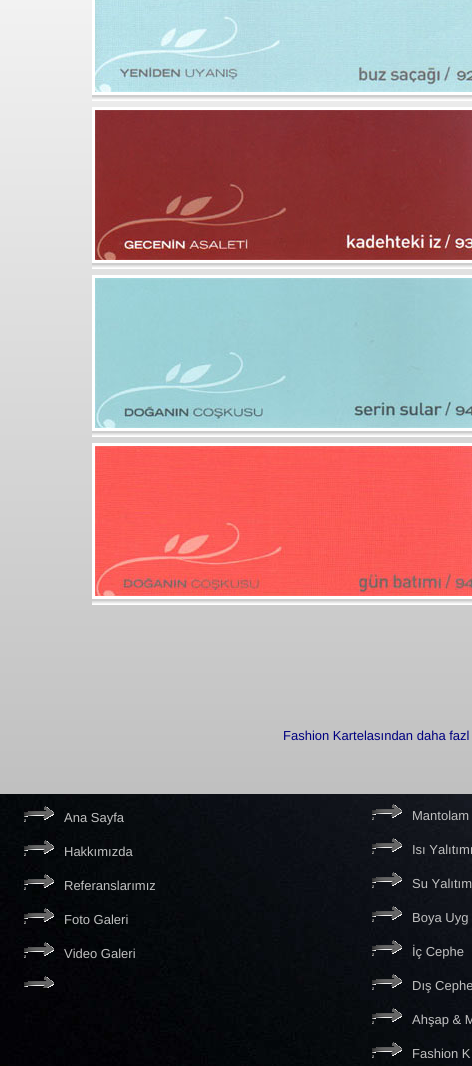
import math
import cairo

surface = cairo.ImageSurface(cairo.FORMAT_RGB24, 472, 1066)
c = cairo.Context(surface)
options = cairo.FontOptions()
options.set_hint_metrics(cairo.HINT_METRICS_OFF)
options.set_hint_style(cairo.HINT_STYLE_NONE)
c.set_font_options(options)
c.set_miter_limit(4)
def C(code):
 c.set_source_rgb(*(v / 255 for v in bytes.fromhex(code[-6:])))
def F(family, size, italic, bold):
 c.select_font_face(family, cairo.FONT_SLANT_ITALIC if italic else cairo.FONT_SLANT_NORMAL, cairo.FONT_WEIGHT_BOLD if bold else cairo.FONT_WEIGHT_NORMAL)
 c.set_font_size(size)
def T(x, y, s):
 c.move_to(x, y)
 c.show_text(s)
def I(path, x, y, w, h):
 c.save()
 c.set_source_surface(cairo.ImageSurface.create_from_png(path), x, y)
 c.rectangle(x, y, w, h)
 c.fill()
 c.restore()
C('ffffff')
c.paint()
I('1.png',0,794,472,272)
I('2.png',0,0,472,794)
I('3.png',92,0,380,101)
I('4.png',95,0,377,92)
I('5.png',92,107,380,162)
I('6.png',95,110,377,150)
I('5.png',92,275,380,162)
I('7.png',95,278,377,150)
I('5.png',92,443,380,162)
I('8.png',95,446,377,150)
F('Liberation Sans',13,0,0)
C('000080')
T(283,740,'Fashion Kartelasından daha fazl')
I('9.png',24,806,30,16)
C('c0c0c0')
T(64,822,'Ana Sayfa')
I('10.png',24,840,30,16)
T(64,856,'Hakkımızda')
I('11.png',24,874,30,16)
T(64,890,'Referanslarımız')
I('12.png',24,908,30,16)
T(64,924,'Foto Galeri')
I('13.png',24,942,30,16)
T(64,958,'Video Galeri')
I('14.png',24,976,30,12)
I('15.png',372,804,30,16)
T(412,820,'Mantolam')
I('16.png',372,838,30,16)
T(412,854,'Isı Yalıtımı')
I('17.png',372,872,30,16)
T(412,888,'Su Yalıtım')
I('18.png',372,906,30,16)
T(412,922,'Boya Uyg')
I('19.png',372,940,30,16)
T(412,956,'İç Cephe')
I('20.png',372,974,30,16)
T(412,990,'Dış Cephe')
I('21.png',372,1008,30,16)
T(412,1024,'Ahşap & M')
I('22.png',372,1042,30,16)
c.save()
c.rectangle(372,795,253,263)
c.clip()
T(412,1058,'Fashion K')
c.restore()
surface.write_to_png('o.png')
